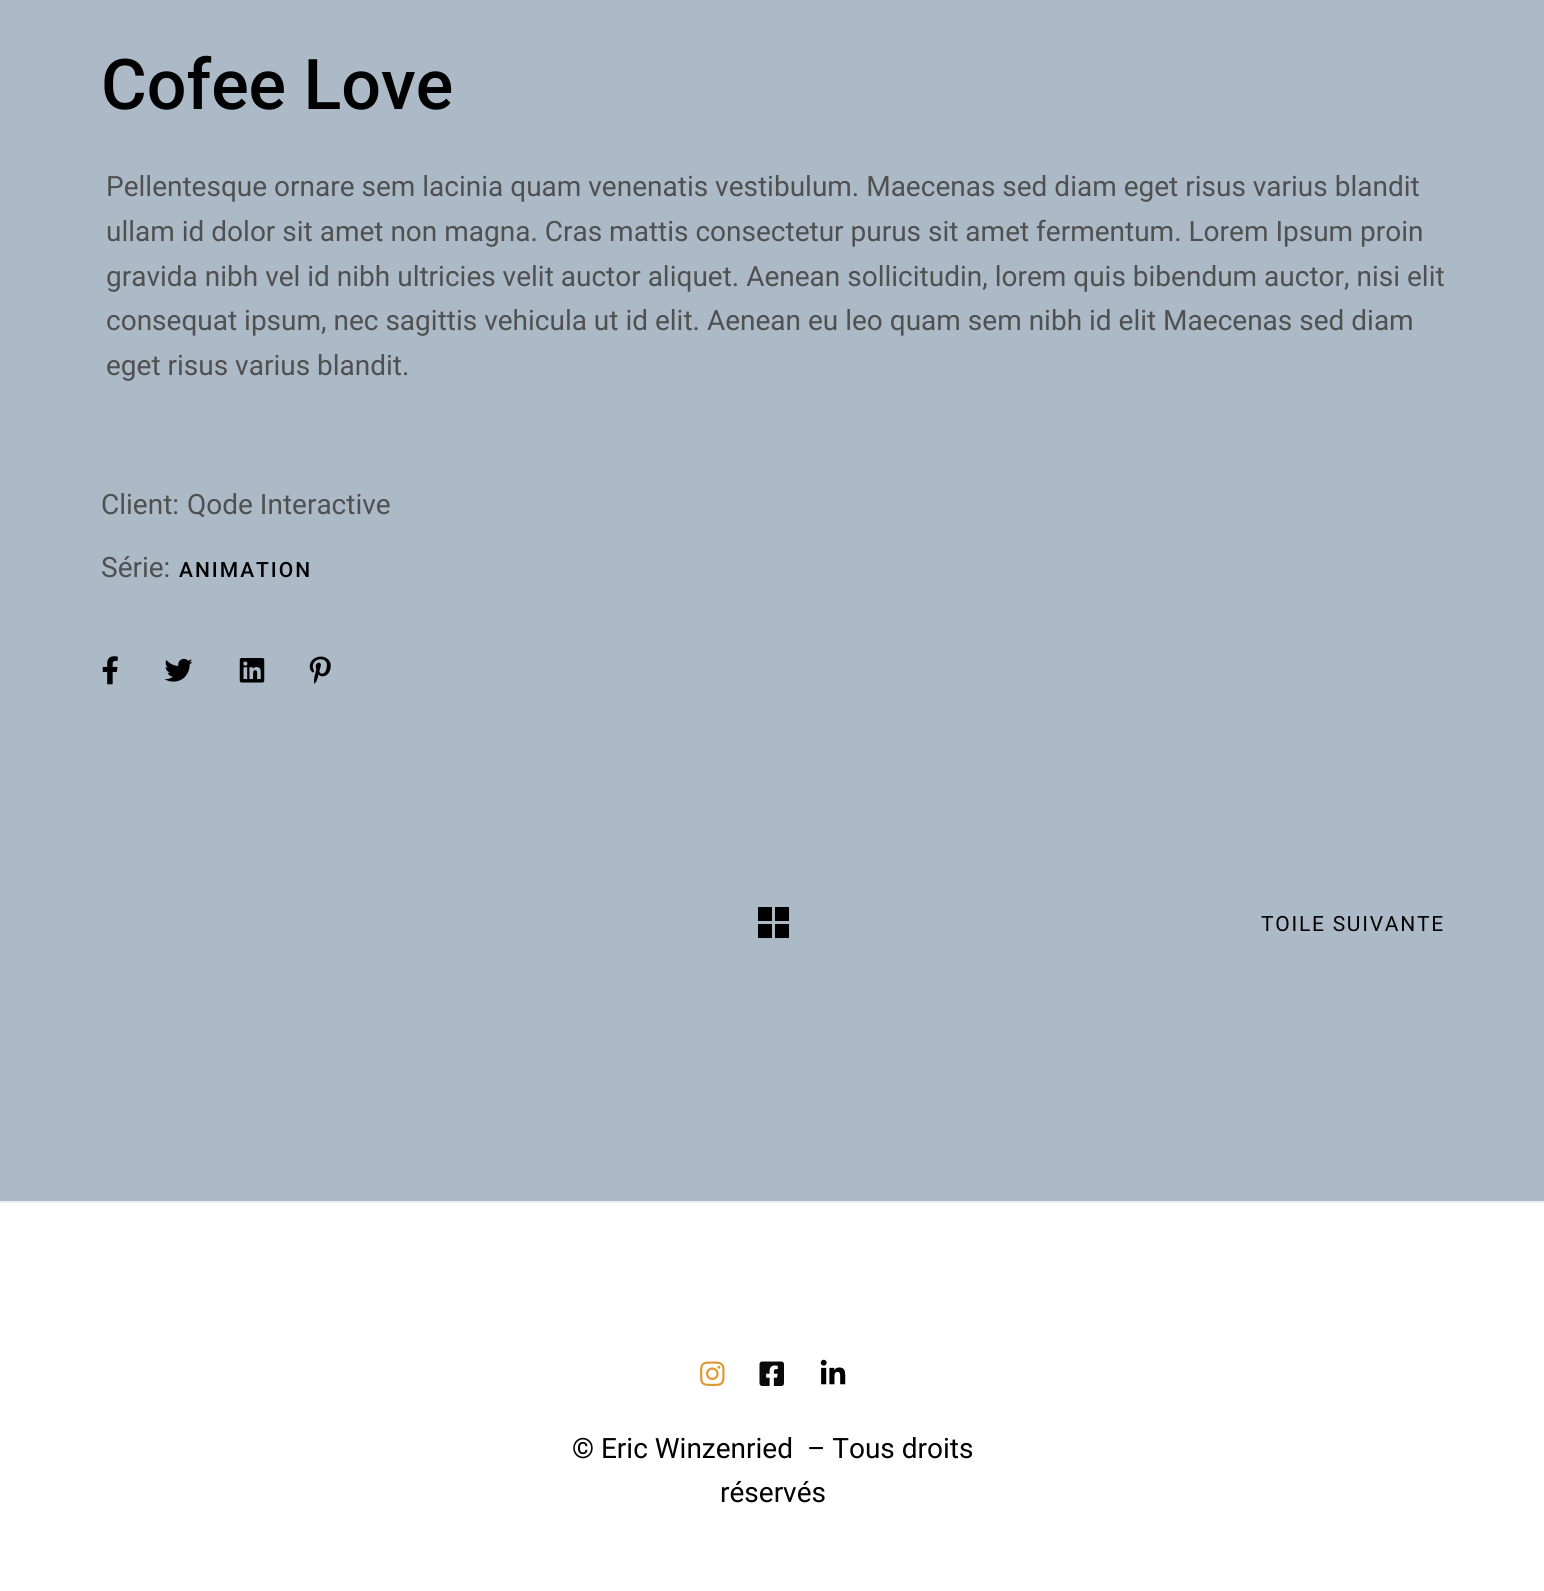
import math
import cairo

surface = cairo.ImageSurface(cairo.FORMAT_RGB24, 1544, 1591)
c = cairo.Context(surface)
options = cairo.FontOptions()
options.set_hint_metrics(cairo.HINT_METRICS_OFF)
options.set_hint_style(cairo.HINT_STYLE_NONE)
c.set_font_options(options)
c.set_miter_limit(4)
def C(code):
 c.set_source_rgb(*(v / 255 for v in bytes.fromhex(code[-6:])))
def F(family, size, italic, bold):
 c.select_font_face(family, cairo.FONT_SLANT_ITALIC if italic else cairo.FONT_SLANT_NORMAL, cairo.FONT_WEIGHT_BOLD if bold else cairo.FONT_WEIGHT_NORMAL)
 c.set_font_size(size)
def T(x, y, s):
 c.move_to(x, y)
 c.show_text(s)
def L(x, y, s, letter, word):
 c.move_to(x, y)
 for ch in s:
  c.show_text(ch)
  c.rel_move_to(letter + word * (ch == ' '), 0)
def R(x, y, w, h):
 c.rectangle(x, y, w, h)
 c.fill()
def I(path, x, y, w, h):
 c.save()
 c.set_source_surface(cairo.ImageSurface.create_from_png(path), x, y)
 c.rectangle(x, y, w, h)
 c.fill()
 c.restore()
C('acbac7')
c.paint()
F('Roboto Medium',70,0,0)
C('000000')
T(101,109,'Cofee Love')
F('Roboto',28,0,0)
C('505050')
T(106,196,'Pellentesque ornare sem lacinia quam venenatis vestibulum. Maecenas sed diam eget risus varius blandit')
T(106,241,'ullam id dolor sit amet non magna. Cras mattis consectetur purus sit amet fermentum. Lorem Ipsum proin')
T(106,286,'gravida nibh vel id nibh ultricies velit auctor aliquet. Aenean sollicitudin, lorem quis bibendum auctor, nisi elit')
T(106,330,'consequat ipsum, nec sagittis vehicula ut id elit. Aenean eu leo quam sem nibh id elit Maecenas sed diam')
T(106,375,'eget risus varius blandit.')
T(101,514,'Client:')
T(187,514,'Qode Interactive')
T(101,577,'Série:')
F('Roboto Medium',21,0,0)
C('000000')
L(179,577,'ANIMATION',2,0)
I('1.png',102,656,16,29)
I('2.png',164,658,29,24)
I('3.png',239,658,26,25)
I('4.png',309,656,22,28)
R(758,907,14,14)
R(775,907,14,14)
R(758,924,14,14)
R(775,924,14,14)
F('Roboto',21,0,0)
L(1261,931,'TOILE SUIVANTE',1.75,0)
C('ffffff')
R(0,1203,1544,388)
C('eeeeee')
R(0,1201,1544,2)
I('5.png',700,1361,25,25)
I('6.png',759,1361,25,25)
I('7.png',820,1359,26,26)
F('Roboto',28,0,0)
C('000000')
T(572,1458,'© Eric Winzenried  – Tous droits')
T(720,1502,'réservés')
surface.write_to_png('o.png')
